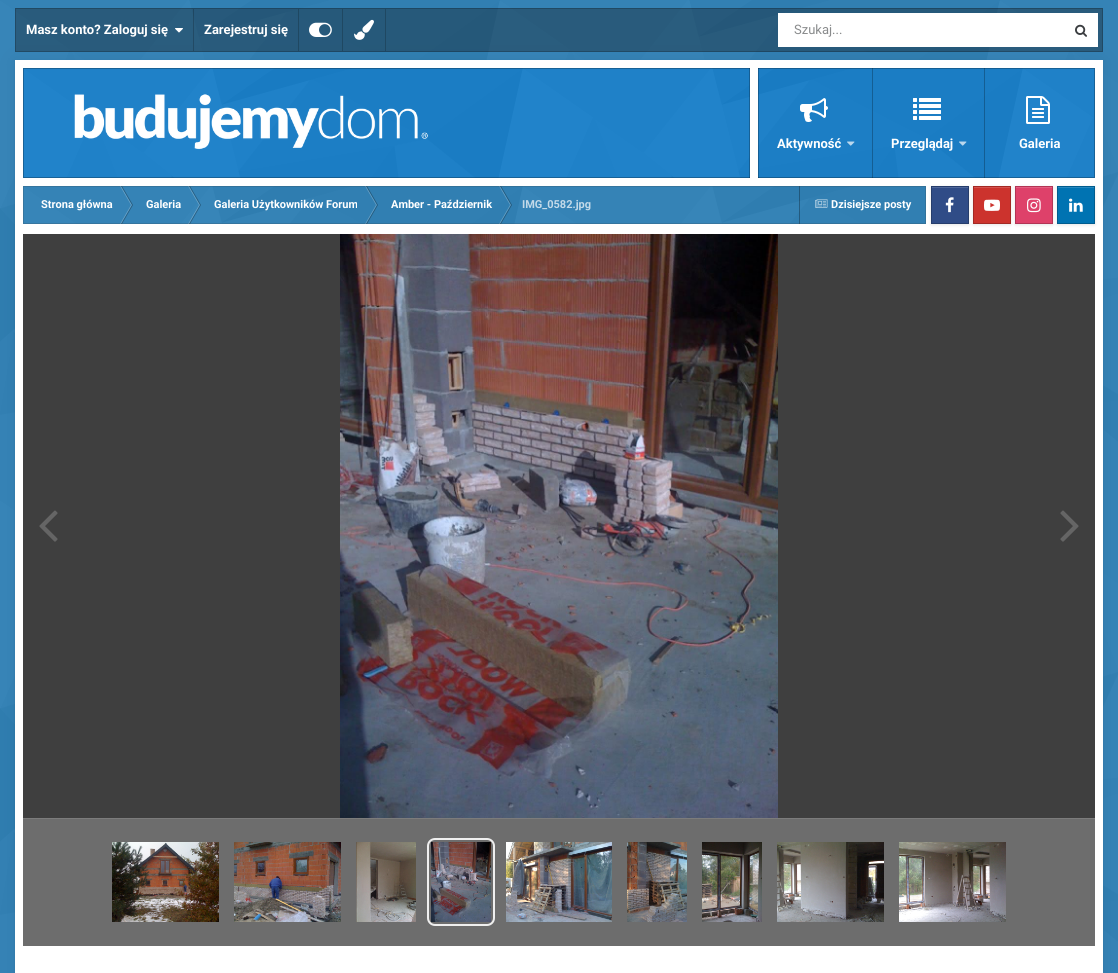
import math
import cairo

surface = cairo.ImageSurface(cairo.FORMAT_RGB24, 1118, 973)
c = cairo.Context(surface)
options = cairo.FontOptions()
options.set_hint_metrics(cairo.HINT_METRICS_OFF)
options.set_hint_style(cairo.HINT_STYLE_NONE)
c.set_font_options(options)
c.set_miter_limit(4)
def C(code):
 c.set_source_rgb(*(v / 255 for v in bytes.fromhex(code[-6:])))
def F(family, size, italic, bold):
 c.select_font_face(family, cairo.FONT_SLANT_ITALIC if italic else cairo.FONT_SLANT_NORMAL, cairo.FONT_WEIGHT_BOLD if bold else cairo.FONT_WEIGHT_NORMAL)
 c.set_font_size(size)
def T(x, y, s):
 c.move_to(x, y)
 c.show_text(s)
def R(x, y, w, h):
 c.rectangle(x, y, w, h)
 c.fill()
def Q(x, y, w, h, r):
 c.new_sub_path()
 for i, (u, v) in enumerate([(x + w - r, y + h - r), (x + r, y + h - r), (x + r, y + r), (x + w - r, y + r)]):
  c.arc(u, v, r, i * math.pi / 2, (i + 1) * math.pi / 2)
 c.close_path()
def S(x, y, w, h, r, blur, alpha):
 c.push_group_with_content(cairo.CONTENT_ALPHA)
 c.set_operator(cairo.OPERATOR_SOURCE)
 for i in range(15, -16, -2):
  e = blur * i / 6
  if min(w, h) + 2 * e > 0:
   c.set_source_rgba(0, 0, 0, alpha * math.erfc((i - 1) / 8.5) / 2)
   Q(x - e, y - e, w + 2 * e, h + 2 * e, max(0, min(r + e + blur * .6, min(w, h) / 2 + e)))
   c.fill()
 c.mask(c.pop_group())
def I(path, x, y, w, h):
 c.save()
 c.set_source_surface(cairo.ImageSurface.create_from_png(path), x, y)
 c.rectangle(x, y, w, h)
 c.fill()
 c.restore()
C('2e81b6')
c.paint()
I('1.png',0,0,1118,973)
C('000000')
S(15,60,1088,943,0,10,.06)
c.set_source_rgba(0.078,0.078,0.078,0.35)
R(15,8,1088,44)
c.rectangle(15.5,8.5,1087,43)
c.set_source_rgba(0,0,0,0.2)
c.set_line_width(1)
c.stroke()
R(193,9,1,42)
F('Roboto',13,0,1)
C('ffffff')
T(26,34,'Masz konto? Zaloguj się')
I('2.png',175,28,8,5)
C('1f4862')
R(298,9,1,42)
C('ffffff')
T(204,34,'Zarejestruj się')
C('1f4862')
R(342,9,1,42)
I('3.png',309,22,23,15)
R(385,9,1,42)
I('4.png',354,19,20,21)
C('ffffff')
R(778,13,320,34)
F('Roboto',13,0,0)
C('898b8c')
T(794,34,'Szukaj...')
I('5.png',1075,24,12,13)
C('000000')
S(15,61,1088,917,0,1.5,.08)
C('ffffff')
R(15,60,1088,913)
C('177ec9')
R(23,68,1072,110)
I('6.png',23,68,1072,110)
c.rectangle(23.5,68.5,1071,109)
c.set_source_rgba(0,0,0,0.25)
c.stroke()
I('7.png',74,94,354,56)
R(749,68,1,110)
C('ffffff')
R(750,68,8,110)
c.set_source_rgba(0,0,0,0.25)
R(758,68,1,110)
I('8.png',800,98,28,24)
F('Roboto',13,0,1)
C('ffffff')
T(777,148,'Aktywność')
I('9.png',847,141,8,5)
c.set_source_rgba(0,0,0,0.25)
R(872,68,1,110)
I('10.png',913,98,28,22)
C('ffffff')
T(891,148,'Przeglądaj')
I('11.png',959,141,8,5)
c.set_source_rgba(0,0,0,0.25)
R(984,68,1,110)
I('12.png',1026,96,24,28)
C('ffffff')
T(1019,148,'Galeria')
C('2e81b6')
R(23,186,903,38)
I('13.png',23,186,903,38)
C('67a2c8')
c.new_path()
c.move_to(120,186)
c.line_to(121,186)
c.line_to(132,205)
c.line_to(131,205)
c.close_path()
c.fill()
c.set_source_rgba(0,0,0,0.3)
c.new_path()
c.move_to(121,186)
c.line_to(122,186)
c.line_to(133,205)
c.line_to(132,205)
c.close_path()
c.fill()
C('67a2c8')
c.new_path()
c.move_to(120,224)
c.line_to(121,224)
c.line_to(132,205)
c.line_to(131,205)
c.close_path()
c.fill()
c.set_source_rgba(0,0,0,0.3)
c.new_path()
c.move_to(121,224)
c.line_to(122,224)
c.line_to(133,205)
c.line_to(132,205)
c.close_path()
c.fill()
C('67a3c8')
c.new_path()
c.move_to(188,186)
c.line_to(189,186)
c.line_to(200,205)
c.line_to(199,205)
c.close_path()
c.fill()
c.set_source_rgba(0,0,0,0.3)
c.new_path()
c.move_to(189,186)
c.line_to(190,186)
c.line_to(201,205)
c.line_to(200,205)
c.close_path()
c.fill()
C('69a4ca')
c.new_path()
c.move_to(188,224)
c.line_to(189,224)
c.line_to(200,205)
c.line_to(199,205)
c.close_path()
c.fill()
c.set_source_rgba(0,0,0,0.3)
c.new_path()
c.move_to(189,224)
c.line_to(190,224)
c.line_to(201,205)
c.line_to(200,205)
c.close_path()
c.fill()
C('649fc5')
c.new_path()
c.move_to(365,186)
c.line_to(366,186)
c.line_to(377,205)
c.line_to(376,205)
c.close_path()
c.fill()
c.set_source_rgba(0,0,0,0.3)
c.new_path()
c.move_to(366,186)
c.line_to(367,186)
c.line_to(378,205)
c.line_to(377,205)
c.close_path()
c.fill()
C('649fc5')
c.new_path()
c.move_to(365,224)
c.line_to(366,224)
c.line_to(377,205)
c.line_to(376,205)
c.close_path()
c.fill()
c.set_source_rgba(0,0,0,0.3)
c.new_path()
c.move_to(366,224)
c.line_to(367,224)
c.line_to(378,205)
c.line_to(377,205)
c.close_path()
c.fill()
C('649fc5')
c.new_path()
c.move_to(499,186)
c.line_to(500,186)
c.line_to(511,205)
c.line_to(510,205)
c.close_path()
c.fill()
c.set_source_rgba(0,0,0,0.3)
c.new_path()
c.move_to(500,186)
c.line_to(501,186)
c.line_to(512,205)
c.line_to(511,205)
c.close_path()
c.fill()
C('639fc4')
c.new_path()
c.move_to(499,224)
c.line_to(500,224)
c.line_to(511,205)
c.line_to(510,205)
c.close_path()
c.fill()
c.set_source_rgba(0,0,0,0.3)
c.new_path()
c.move_to(500,224)
c.line_to(501,224)
c.line_to(512,205)
c.line_to(511,205)
c.close_path()
c.fill()
R(799,186,1,38)
I('14.png',815,199,13,9)
c.rectangle(23.5,186.5,902,37)
c.set_source_rgba(0.227,0.239,0.251,0.2)
c.stroke()
F('Roboto',11,0,1)
C('ffffff')
T(41,208,'Strona główna')
T(146,208,'Galeria')
T(214,208,'Galeria Użytkowników Forum')
T(391,208,'Amber - Październik')
C('c3dae9')
T(522,208,'IMG_0582.jpg')
C('ffffff')
T(831,208,'Dzisiejsze posty')
C('000000')
S(931,187,38,38,0,1.5,.1)
C('304c87')
R(932,188,36,35)
C('4f6799')
R(932,187,36,1)
I('15.png',945,197,9,16)
c.rectangle(931.5,186.5,37,37)
C('263d6c')
c.stroke()
C('000000')
S(973,187,38,38,0,1.5,.1)
C('cc332d')
R(974,188,36,35)
C('d4524d')
R(974,187,36,1)
I('16.png',984,199,16,12)
c.rectangle(973.5,186.5,37,37)
C('a32924')
c.stroke()
C('000000')
S(1015,187,38,38,0,1.5,.1)
C('de416a')
R(1016,188,36,35)
C('e35e80')
R(1016,187,36,1)
I('17.png',1027,198,14,15)
c.rectangle(1015.5,186.5,37,37)
C('b23455')
c.stroke()
C('000000')
S(1057,187,38,38,0,1.5,.1)
C('0073b2')
R(1058,188,36,35)
C('2688be')
R(1058,187,36,1)
I('18.png',1069,198,14,14)
c.rectangle(1057.5,186.5,37,37)
C('005c8e')
c.stroke()
C('3f3f3f')
R(23,234,1072,584)
I('19.png',340,234,438,584)
I('20.png',39,510,19,32)
I('21.png',1060,510,19,32)
C('6d6d6d')
R(23,819,1072,127)
C('7c7c7c')
R(23,818,1072,1)
I('22.png',112,842,107,80)
I('23.png',234,842,107,80)
I('24.png',356,842,60,80)
Q(428,839,66,86,7)
C('efefef')
c.set_line_width(2)
c.stroke()
I('25.png',431,842,60,80)
I('26.png',506,842,106,80)
I('27.png',627,842,60,80)
I('28.png',702,842,60,80)
I('29.png',777,842,107,80)
I('30.png',899,842,107,80)
surface.write_to_png('o.png')
